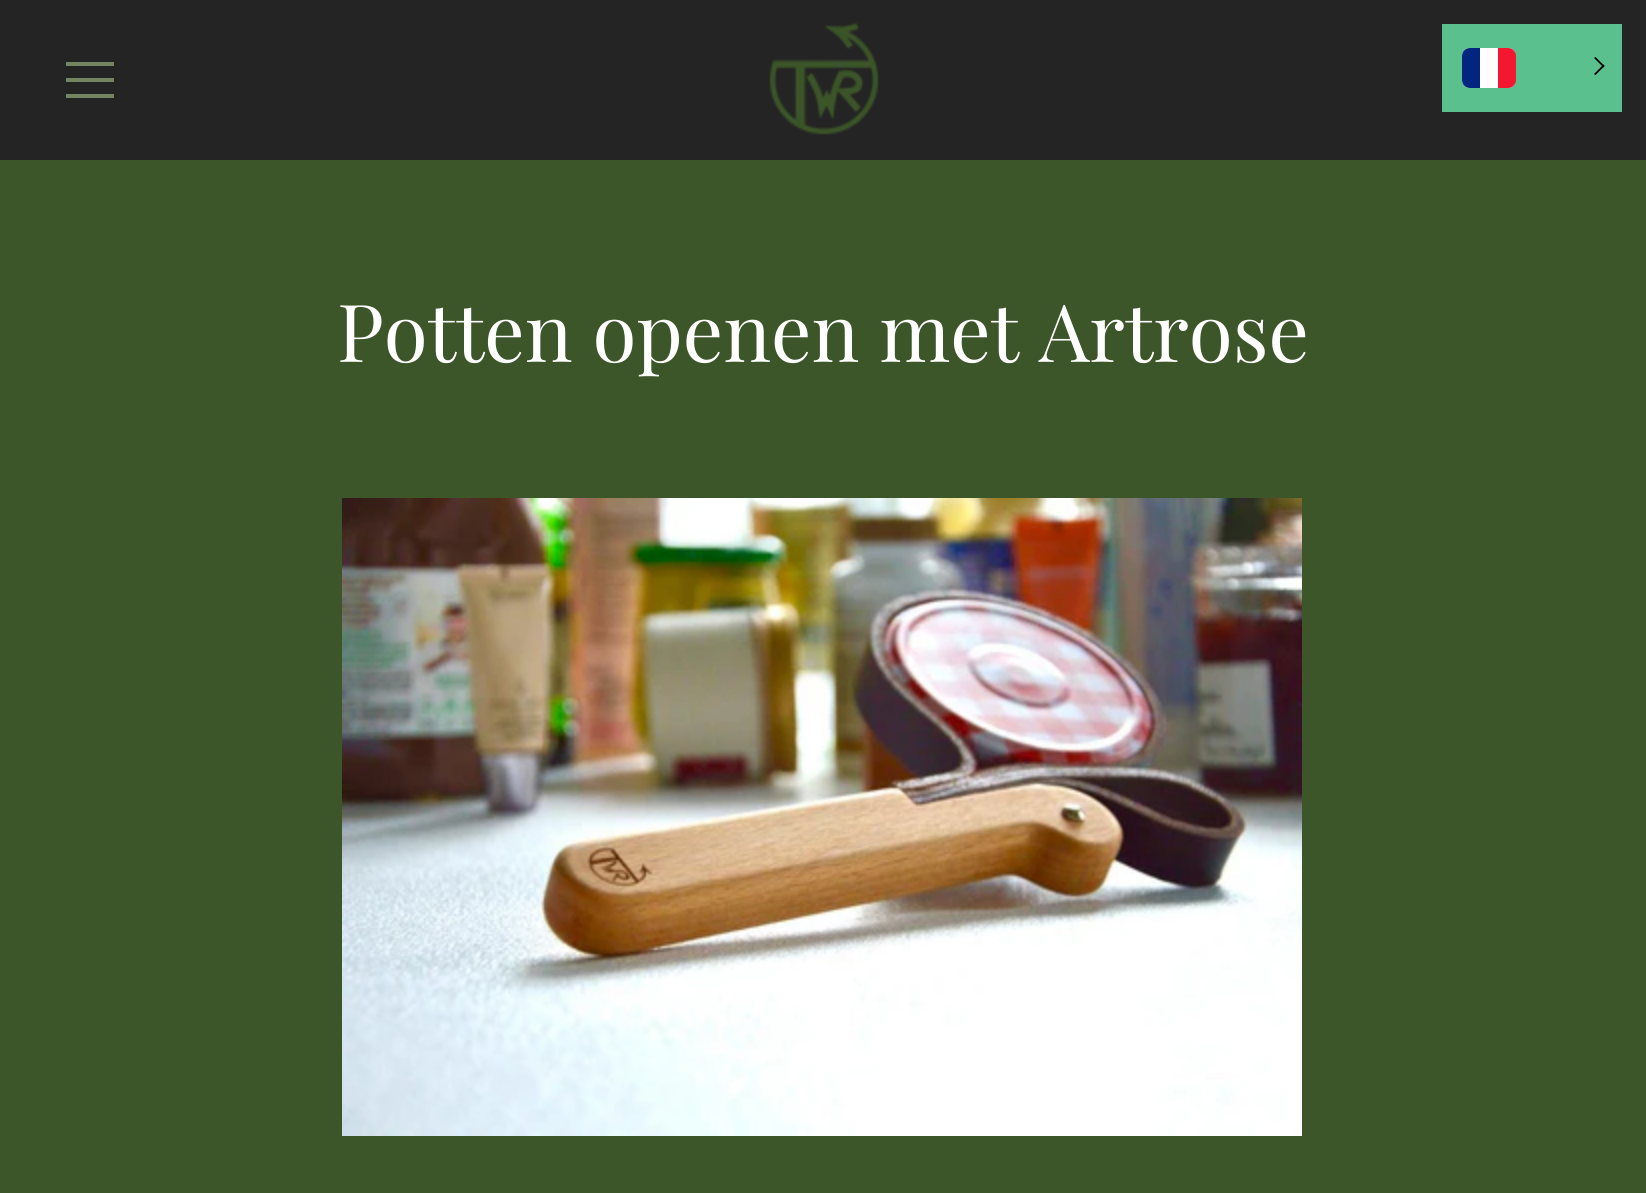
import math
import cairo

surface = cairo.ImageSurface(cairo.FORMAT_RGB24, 1646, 1193)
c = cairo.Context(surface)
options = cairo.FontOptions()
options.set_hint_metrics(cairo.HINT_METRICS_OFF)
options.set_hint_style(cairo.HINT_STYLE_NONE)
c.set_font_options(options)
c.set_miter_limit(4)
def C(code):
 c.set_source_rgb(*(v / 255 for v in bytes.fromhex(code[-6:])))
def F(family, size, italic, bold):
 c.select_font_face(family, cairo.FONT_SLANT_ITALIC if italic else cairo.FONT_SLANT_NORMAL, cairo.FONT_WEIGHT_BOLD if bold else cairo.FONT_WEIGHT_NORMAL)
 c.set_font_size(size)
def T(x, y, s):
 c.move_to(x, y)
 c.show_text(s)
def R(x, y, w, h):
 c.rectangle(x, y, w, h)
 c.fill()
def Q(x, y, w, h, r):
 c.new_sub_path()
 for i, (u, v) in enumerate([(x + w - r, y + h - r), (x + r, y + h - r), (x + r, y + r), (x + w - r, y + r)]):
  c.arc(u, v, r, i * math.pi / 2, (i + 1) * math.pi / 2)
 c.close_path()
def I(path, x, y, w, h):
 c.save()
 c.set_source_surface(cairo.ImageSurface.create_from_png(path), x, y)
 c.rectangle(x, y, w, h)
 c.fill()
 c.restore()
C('3c5629')
c.paint()
C('242424')
R(0,0,1646,160)
C('758560')
R(66,62,48,4)
R(66,78,48,4)
R(66,94,48,4)
I('1.png',769,22,110,113)
C('5ac18e')
R(1442,24,180,88)
c.save()
Q(1462,48,54,40,8)
c.clip()
C('ffffff')
c.new_path()
c.move_to(1470,48)
c.line_to(1515,48)
c.line_to(1515,88)
c.line_to(1470,88)
c.curve_to(1465.5,88,1462,84.5,1462,80)
c.line_to(1462,56)
c.curve_to(1462,51.5,1465.5,48,1470,48)
c.close_path()
c.fill()
c.restore()
C('00267f')
c.new_path()
c.move_to(1470,48)
c.line_to(1480,48)
c.line_to(1480,88)
c.line_to(1470,88)
c.curve_to(1465.5,88,1462,84.5,1462,80)
c.line_to(1462,56)
c.curve_to(1462,51.5,1465.5,48,1470,48)
c.close_path()
c.fill()
C('f31830')
c.new_path()
c.move_to(1498,48)
c.line_to(1508,48)
c.curve_to(1512.5,48,1516,51.5,1516,56)
c.line_to(1516,80)
c.curve_to(1516,84.5,1512.5,88,1508,88)
c.line_to(1498,88)
c.close_path()
c.fill()
C('000000')
c.new_path()
c.move_to(1595.5,57)
c.line_to(1604.5,66)
c.line_to(1603.5,67.5)
c.line_to(1594,58)
c.close_path()
c.fill()
c.new_path()
c.move_to(1603.5,64.5)
c.line_to(1604.5,66)
c.line_to(1595.5,75)
c.line_to(1594,74)
c.close_path()
c.fill()
F('Playfair Display',80,0,0)
C('ffffff')
T(337,362,'Potten openen met Artrose')
I('2.png',342,498,960,638)
surface.write_to_png('o.png')
